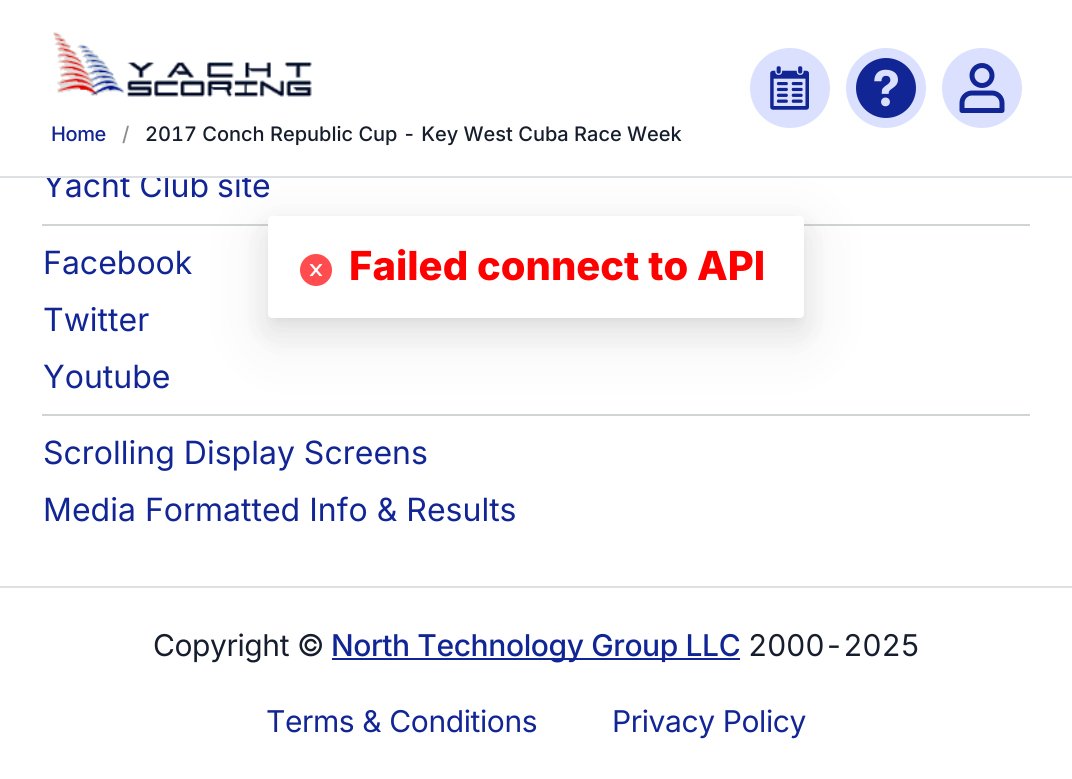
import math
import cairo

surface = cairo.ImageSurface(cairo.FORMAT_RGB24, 1072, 779)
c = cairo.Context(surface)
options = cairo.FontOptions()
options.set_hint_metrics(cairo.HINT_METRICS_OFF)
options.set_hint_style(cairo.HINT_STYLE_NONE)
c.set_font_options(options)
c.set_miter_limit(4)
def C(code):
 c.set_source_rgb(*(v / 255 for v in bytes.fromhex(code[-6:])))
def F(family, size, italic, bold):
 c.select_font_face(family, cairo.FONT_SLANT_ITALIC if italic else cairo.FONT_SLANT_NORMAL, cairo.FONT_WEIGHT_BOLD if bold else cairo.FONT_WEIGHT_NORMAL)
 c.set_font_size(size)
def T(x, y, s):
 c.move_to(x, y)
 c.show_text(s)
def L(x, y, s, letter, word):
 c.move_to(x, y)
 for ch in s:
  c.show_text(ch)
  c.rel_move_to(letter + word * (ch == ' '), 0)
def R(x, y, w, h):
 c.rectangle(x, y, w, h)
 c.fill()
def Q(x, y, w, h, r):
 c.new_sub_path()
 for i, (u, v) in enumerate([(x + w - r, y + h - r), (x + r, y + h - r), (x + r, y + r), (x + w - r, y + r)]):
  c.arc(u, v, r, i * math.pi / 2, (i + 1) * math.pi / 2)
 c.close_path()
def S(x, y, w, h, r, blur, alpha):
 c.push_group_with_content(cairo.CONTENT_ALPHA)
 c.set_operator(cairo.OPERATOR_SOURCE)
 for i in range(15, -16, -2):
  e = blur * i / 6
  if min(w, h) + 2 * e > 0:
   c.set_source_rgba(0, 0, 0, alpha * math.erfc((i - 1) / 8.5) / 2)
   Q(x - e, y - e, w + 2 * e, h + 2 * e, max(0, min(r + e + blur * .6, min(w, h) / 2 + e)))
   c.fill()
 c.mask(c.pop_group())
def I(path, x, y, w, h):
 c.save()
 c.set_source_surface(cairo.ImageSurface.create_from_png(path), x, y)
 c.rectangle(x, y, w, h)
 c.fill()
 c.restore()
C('ffffff')
c.paint()
F('Inter',32,0,0)
C('112595')
T(43,197,'Yacht Club')
T(217,197,'site')
C('ffffff')
R(43,172,205,4)
C('dde1e3')
R(0,176,1072,2)
C('dbe0ff')
c.new_path()
c.arc(790,88,40,0,2 * math.pi)
c.fill()
I('1.png',770,66,39,44)
c.arc(886,88,40,0,2 * math.pi)
c.fill()
I('2.png',856,58,60,60)
c.arc(982,88,40,0,2 * math.pi)
c.fill()
I('3.png',959,63,46,50)
I('4.png',53,32,259,65)
F('Inter Medium',20,0,0)
C('112595')
L(51,141,'Home',-.4,0)
C('8c8c8c')
T(122,141,'/')
F('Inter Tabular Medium',20,0,0)
C('161e2e')
T(145,141,'2017 Conch Republic Cup - Key West Cuba Race Week')
C('d0d4d5')
R(42,224,988,2)
F('Inter',32,0,0)
C('112595')
T(43,274,'Facebook')
T(43,331,'Twitter')
T(43,388,'Youtube')
C('d0d4d5')
R(42,414,988,2)
C('112595')
T(43,464,'Scrolling Display Screens')
T(43,521,'Media Formatted Info & Results')
C('dde1e3')
R(0,586,1072,2)
F('Inter',30,0,0)
C('161e2e')
L(153,656,'Copyright ©',-.4,0)
C('112595')
R(332,658,408,2)
F('Inter Medium',30,0,0)
L(331,656,'North Technology Group LLC',-.4,0)
F('Inter Tabular',30,0,0)
C('161e2e')
L(748,656,'2000-2025',-.4,0)
F('Inter',30,0,0)
C('112595')
L(266,732,'Terms & Conditions',-.4,0)
L(612,732,'Privacy Policy',-.4,0)
C('000000')
S(252,218,568,134,20,28,.05)
S(268,228,536,102,4,16,.08)
S(276,230,520,86,0,6,.12)
C('ffffff')
Q(268,216,536,102,4)
c.fill()
I('5.png',300,254,32,32)
F('Inter ExtraBold',40,0,0)
C('ff0000')
T(349,280,'Failed connect to API')
surface.write_to_png('o.png')
